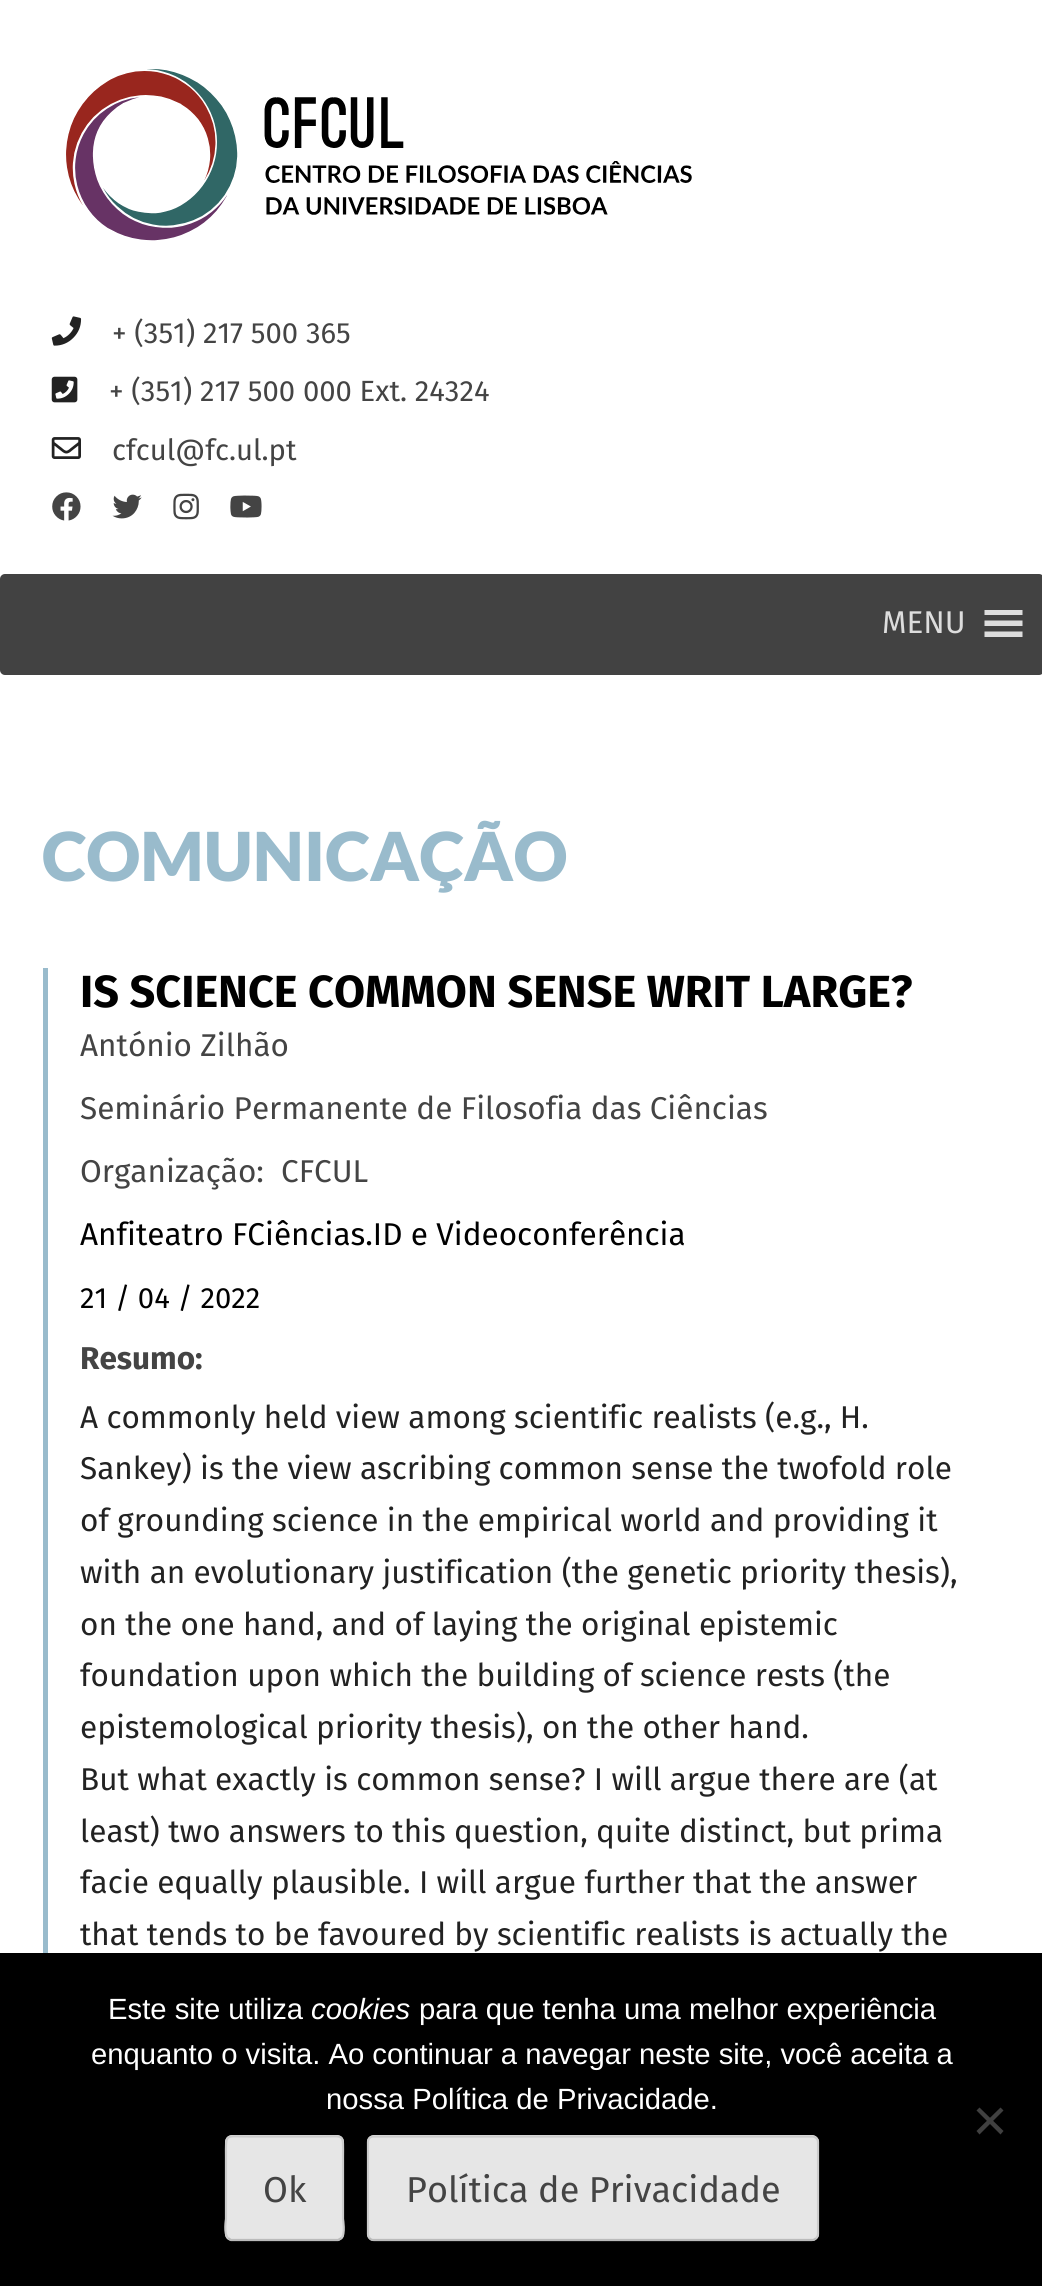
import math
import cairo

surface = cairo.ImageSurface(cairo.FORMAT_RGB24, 1042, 2286)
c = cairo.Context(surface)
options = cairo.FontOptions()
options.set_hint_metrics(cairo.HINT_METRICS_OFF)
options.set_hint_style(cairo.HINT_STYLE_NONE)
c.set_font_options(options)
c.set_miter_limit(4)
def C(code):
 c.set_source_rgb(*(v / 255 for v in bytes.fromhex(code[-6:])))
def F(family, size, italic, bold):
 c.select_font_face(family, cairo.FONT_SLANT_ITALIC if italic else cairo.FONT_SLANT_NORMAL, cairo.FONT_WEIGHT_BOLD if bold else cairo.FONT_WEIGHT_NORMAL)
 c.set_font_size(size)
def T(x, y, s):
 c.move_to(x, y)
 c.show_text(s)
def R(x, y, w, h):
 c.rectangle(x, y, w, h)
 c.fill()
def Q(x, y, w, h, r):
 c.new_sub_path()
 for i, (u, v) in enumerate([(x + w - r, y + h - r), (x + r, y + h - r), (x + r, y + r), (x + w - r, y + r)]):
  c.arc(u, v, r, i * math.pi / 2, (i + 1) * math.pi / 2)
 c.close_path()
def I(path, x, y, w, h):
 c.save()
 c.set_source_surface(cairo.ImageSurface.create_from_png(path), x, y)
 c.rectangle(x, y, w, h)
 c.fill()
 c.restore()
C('ffffff')
c.paint()
I('1.png',66,69,626,172)
I('2.png',51,316,31,30)
F('Fira Sans',29.25,0,0)
C('444444')
T(112,343,'+ (351) 217 500 365')
I('3.png',51,376,27,27)
T(109,401,'+ (351) 217 500 000 Ext. 24324')
I('4.png',51,437,30,22)
T(112,460,'cfcul@fc.ul.pt')
I('5.png',52,492,29,29)
I('6.png',112,494,30,25)
I('7.png',173,493,26,27)
I('8.png',230,495,32,23)
C('424242')
Q(0,574,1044,101,5)
c.fill()
F('Fira Sans',31.5,0,0)
C('dddddd')
T(882,633,'MENU')
c.new_path()
c.move_to(984.5,637)
c.line_to(1022.5,637)
c.line_to(1022.5,631.5)
c.line_to(984.5,631.5)
c.close_path()
c.move_to(984.5,610)
c.line_to(984.5,615)
c.line_to(1022.5,615)
c.line_to(1022.5,610)
c.close_path()
c.move_to(984.5,626)
c.line_to(1022.5,626)
c.line_to(1022.5,620.5)
c.line_to(984.5,620.5)
c.close_path()
c.fill()
F('Lato Black',67.5,0,0)
C('99bbcc')
T(42,881,'COMUNICAÇÃO')
R(43,968,5,985)
F('Fira Sans',45,0,1)
C('000000')
T(80,1007,'IS SCIENCE COMMON SENSE WRIT LARGE?')
F('Fira Sans',31.5,0,0)
C('444444')
T(80,1056,'António Zilhão')
T(80,1119,'Seminário Permanente de Filosofia das Ciências')
T(80,1182,'Organização:')
T(281,1182,'CFCUL')
C('000000')
T(80,1245,'Anfiteatro FCiências.ID e Videoconferência')
F('Fira Sans',29.25,0,0)
T(80,1308,'21 / 04 / 2022')
F('Fira Sans',31.5,0,1)
C('444444')
T(80,1369,'Resumo:')
F('Fira Sans',31.5,0,0)
C('222222')
T(80,1428,'A commonly held view among scientific realists (e.g., H.')
T(80,1479,'Sankey) is the view ascribing common sense the twofold role')
T(80,1531,'of grounding science in the empirical world and providing it')
T(80,1583,'with an evolutionary justification (the genetic priority thesis),')
T(80,1635,'on the one hand, and of laying the original epistemic')
T(80,1686,'foundation upon which the building of science rests (the')
T(80,1738,'epistemological priority thesis), on the other hand.')
T(80,1790,'But what exactly is common sense? I will argue there are (at')
T(80,1842,'least) two answers to this question, quite distinct, but prima')
T(80,1893,'facie equally plausible. I will argue further that the answer')
T(80,1945,'that tends to be favoured by scientific realists is actually the')
C('000000')
R(0,1953,1042,333)
F('Liberation Sans',29.25,0,0)
C('ffffff')
T(108,2019,'Este site utiliza')
F('Liberation Sans',29.25,1,0)
T(311,2019,'cookies')
F('Liberation Sans',29.25,0,0)
T(419,2019,'para que tenha uma melhor experiência')
T(91,2064,'enquanto o visita. Ao continuar a navegar neste site, você aceita a')
T(326,2109,'nossa Política de Privacidade.')
C('404040')
c.new_path()
c.move_to(1000.5,2107.5)
c.line_to(1003.5,2110.5)
c.line_to(979.5,2134.5)
c.line_to(976.5,2131)
c.close_path()
c.fill()
c.new_path()
c.move_to(976.5,2110.5)
c.line_to(979.5,2107.5)
c.line_to(1003.5,2131)
c.line_to(1000.5,2134.5)
c.close_path()
c.fill()
C('e6e6e6')
Q(225,2135,119,106,7)
c.fill()
c.new_path()
c.move_to(341.5,2238)
c.line_to(338,2240)
c.line_to(231,2240)
c.line_to(228,2238)
C('bbbbbb')
c.set_line_width(2.2)
c.stroke()
c.new_path()
c.move_to(228,2238)
c.curve_to(223.5,2234,226,2219,226,2219)
c.line_to(226,2157.5)
c.curve_to(226,2132.5,224,2136.5,249.5,2136.5)
c.line_to(320,2136.5)
c.curve_to(345.5,2136.5,343,2132.5,343,2157.5)
c.line_to(343,2219)
c.curve_to(343,2219,345.5,2234,341.5,2238)
C('cccccc')
c.stroke()
F('Fira Sans',36,0,0)
C('444444')
T(263,2202,'Ok')
C('e6e6e6')
Q(367,2135,452,106,7)
c.fill()
c.new_path()
c.move_to(816,2238)
c.curve_to(815,2239.5,813.5,2240,812,2240)
c.line_to(373.5,2240)
c.curve_to(372,2240,370.5,2239.5,369.5,2238)
C('bbbbbb')
c.stroke()
c.new_path()
c.move_to(369.5,2238)
c.curve_to(368.5,2237,368,2235.5,368,2234)
c.line_to(368,2142)
c.curve_to(368,2140.5,368.5,2139,369.5,2138)
c.curve_to(370.5,2137,372,2136.5,373.5,2136.5)
c.line_to(812,2136.5)
c.curve_to(813.5,2136.5,815,2137,816,2138)
c.curve_to(817.5,2139,818,2140.5,818,2142)
c.line_to(818,2234)
c.curve_to(818,2235.5,817.5,2237,816,2238)
C('cccccc')
c.stroke()
C('444444')
T(406,2202,'Política de Privacidade')
surface.write_to_png('o.png')
